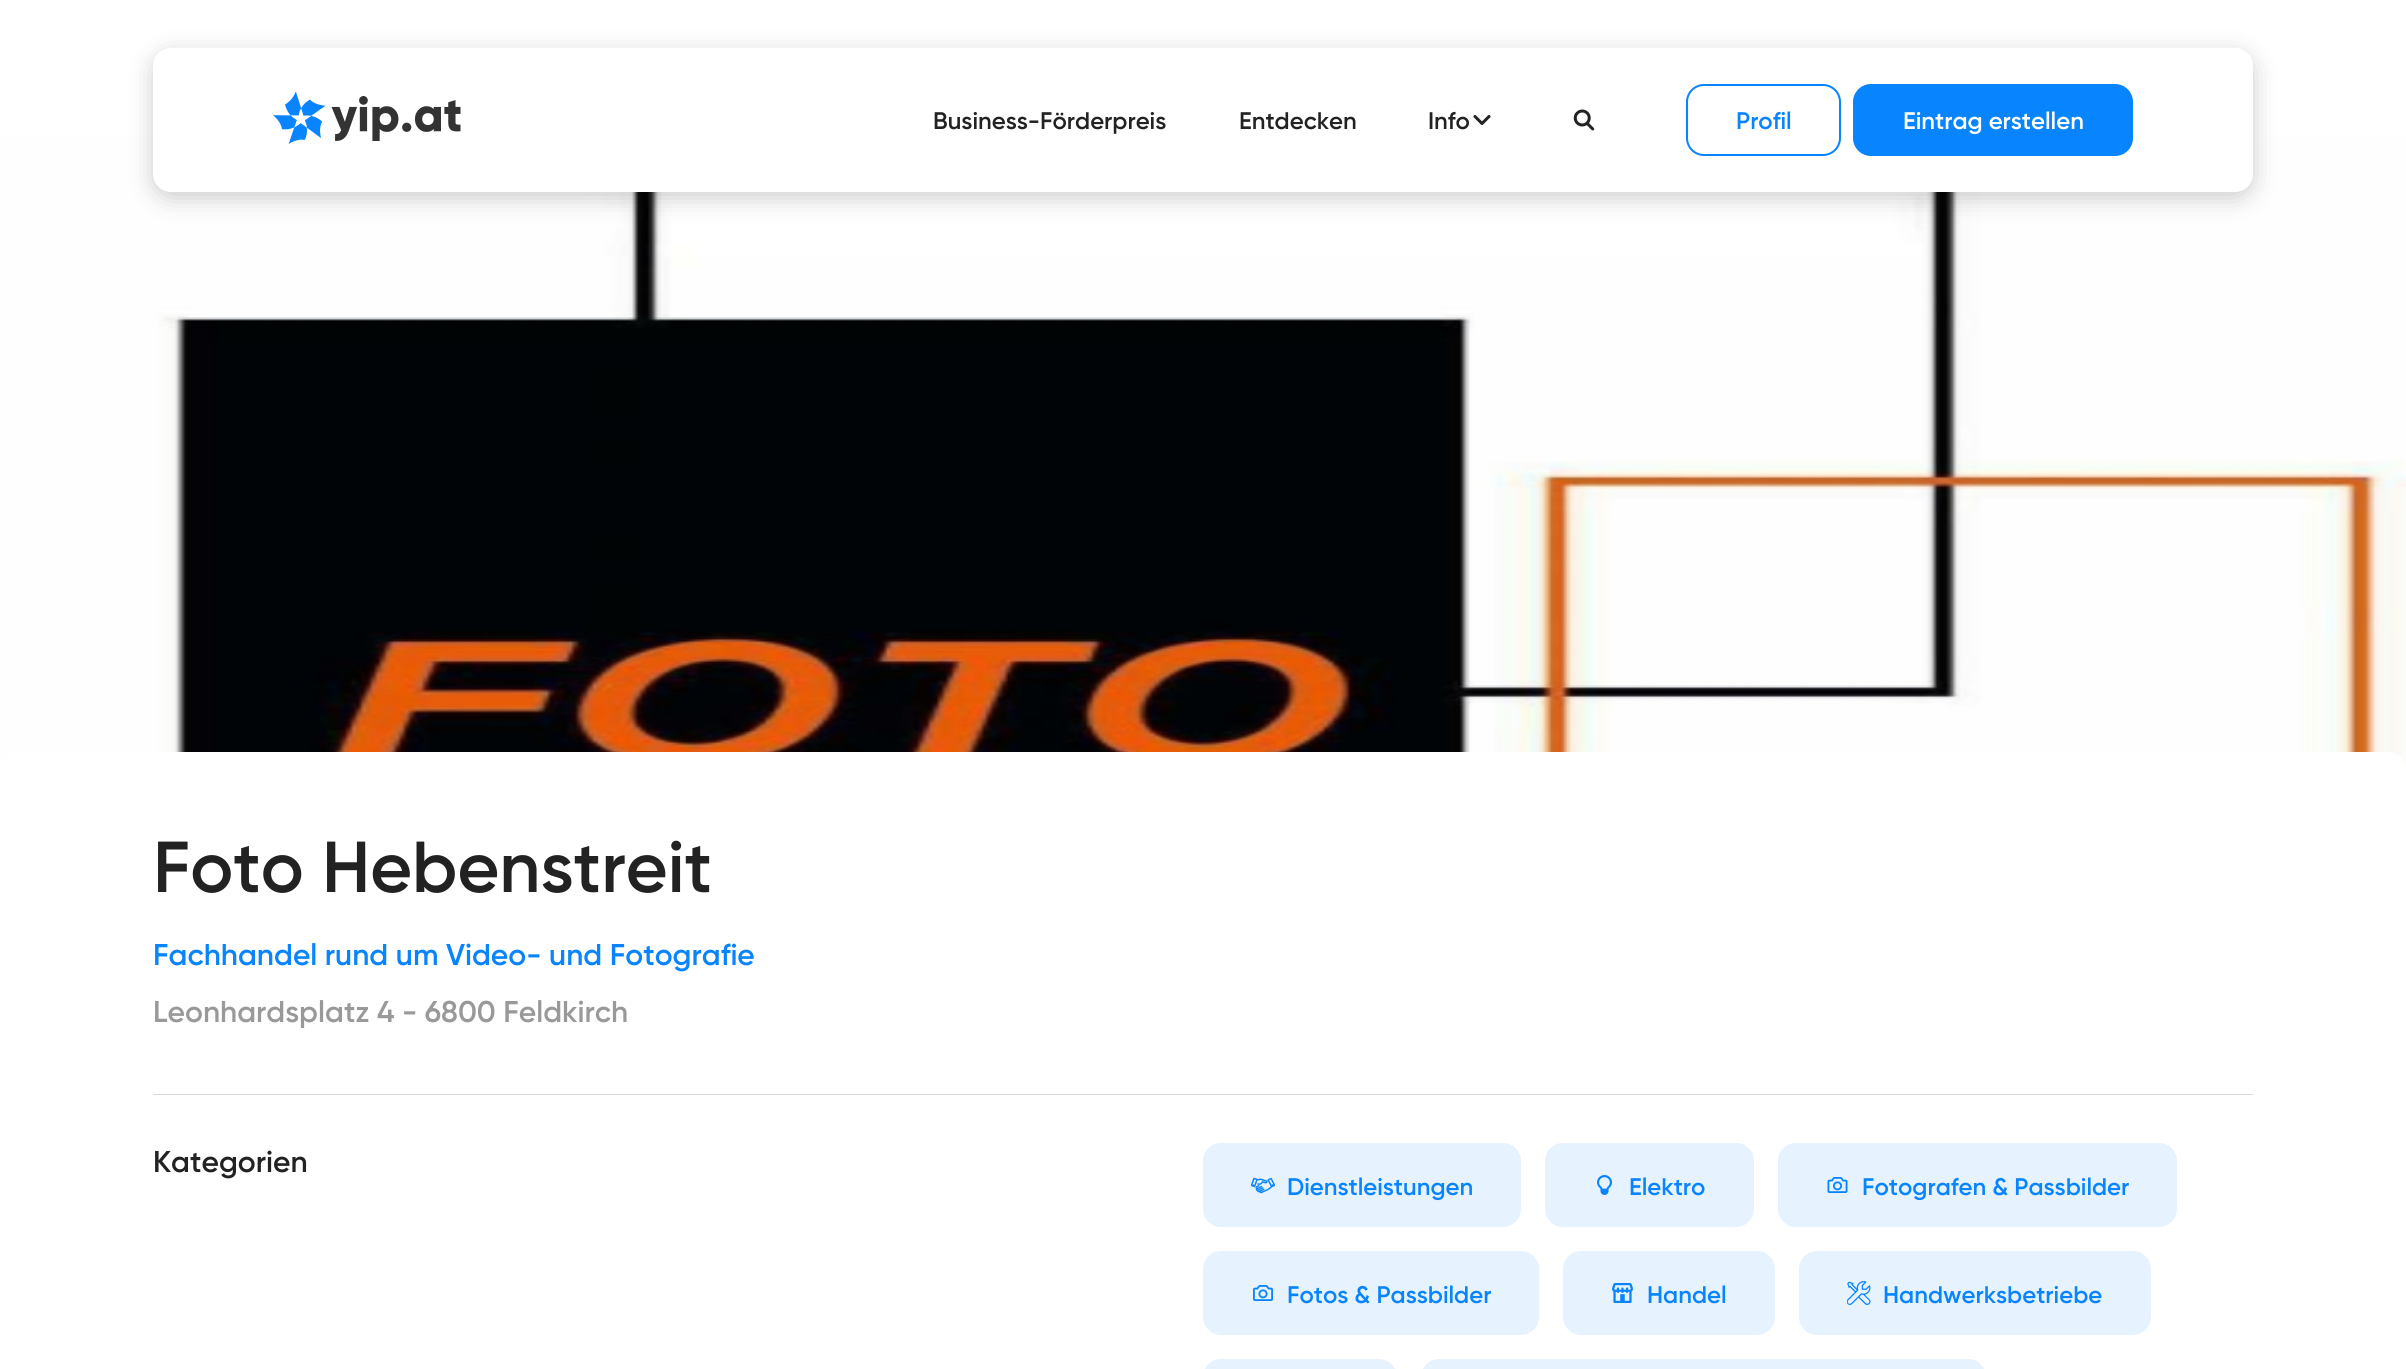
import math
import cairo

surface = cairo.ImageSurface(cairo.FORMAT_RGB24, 2406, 1369)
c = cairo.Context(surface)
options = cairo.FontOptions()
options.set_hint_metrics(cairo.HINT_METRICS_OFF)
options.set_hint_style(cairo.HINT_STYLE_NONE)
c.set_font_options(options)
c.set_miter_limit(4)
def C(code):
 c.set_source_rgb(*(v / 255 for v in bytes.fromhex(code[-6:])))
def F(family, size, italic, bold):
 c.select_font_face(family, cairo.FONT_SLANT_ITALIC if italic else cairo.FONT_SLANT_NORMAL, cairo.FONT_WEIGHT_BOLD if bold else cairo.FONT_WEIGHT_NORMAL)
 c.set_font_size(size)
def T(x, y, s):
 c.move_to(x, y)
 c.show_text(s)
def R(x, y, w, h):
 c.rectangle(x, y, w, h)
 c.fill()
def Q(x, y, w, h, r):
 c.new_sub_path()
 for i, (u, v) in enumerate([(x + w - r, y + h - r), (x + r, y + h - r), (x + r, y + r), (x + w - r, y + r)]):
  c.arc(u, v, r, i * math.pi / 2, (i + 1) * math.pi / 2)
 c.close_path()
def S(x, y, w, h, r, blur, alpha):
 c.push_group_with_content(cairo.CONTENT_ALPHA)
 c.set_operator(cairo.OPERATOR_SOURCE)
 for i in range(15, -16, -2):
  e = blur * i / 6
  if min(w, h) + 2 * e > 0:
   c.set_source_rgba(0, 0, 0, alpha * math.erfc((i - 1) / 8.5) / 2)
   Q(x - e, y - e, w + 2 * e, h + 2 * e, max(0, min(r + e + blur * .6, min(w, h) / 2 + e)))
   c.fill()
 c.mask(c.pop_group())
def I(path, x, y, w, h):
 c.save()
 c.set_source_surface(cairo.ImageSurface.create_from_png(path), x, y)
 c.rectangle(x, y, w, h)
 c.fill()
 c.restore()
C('ffffff')
c.paint()
I('4.png',0,138,2406,632)
C('000000')
S(153,54,2100,144,18,12,.2)
C('ffffff')
Q(153,48,2100,144,18)
c.fill()
I('1.png',273,92,188,52)
F('Gilroy SemiBold',24,0,0)
C('222222')
T(933,129,'Business-Förderpreis')
T(1239,129,'Entdecken')
T(1428,129,'Info')
I('2.png',1473,115,18,10)
I('3.png',1573,109,22,22)
Q(1687,85,153,70,17)
C('0885fe')
c.stroke()
T(1736,129,'Profil')
Q(1854,85,278,70,17)
c.fill_preserve()
c.stroke()
C('ffffff')
T(1903,129,'Eintrag erstellen')
c.new_path()
c.move_to(18,752)
c.line_to(2388,752)
c.curve_to(2398,752,2406,760,2406,770)
c.line_to(2406,1095)
c.line_to(0,1095)
c.line_to(0,770)
c.curve_to(0,760,8,752,18,752)
c.close_path()
c.fill()
C('d8d8d8')
R(153,1094,2100,1)
F('Gilroy SemiBold',72,0,0)
C('222222')
T(153,892,'Foto Hebenstreit')
F('Gilroy SemiBold',30,0,0)
C('0885fe')
T(153,965,'Fachhandel rund um Video- und Fotografie')
C('999999')
T(153,1022,'Leonhardsplatz 4 - 6800 Feldkirch')
C('222222')
T(153,1172,'Kategorien')
C('e6f2fe')
Q(1203,1143,318,84,18)
c.fill()
I('5.png',1251,1177,24,17)
F('Gilroy SemiBold',24,0,0)
C('0885fe')
T(1287,1195,'Dienstleistungen')
C('e6f2fe')
Q(1545,1143,209,84,18)
c.fill()
I('6.png',1597,1175,15,20)
C('0885fe')
T(1629,1195,'Elektro')
C('e6f2fe')
Q(1778,1143,399,84,18)
c.fill()
I('7.png',1827,1177,21,16)
C('0885fe')
T(1862,1195,'Fotografen & Passbilder')
C('e6f2fe')
Q(1203,1251,336,84,18)
c.fill()
I('8.png',1253,1285,20,16)
C('0885fe')
T(1287,1303,'Fotos & Passbilder')
C('e6f2fe')
Q(1563,1251,212,84,18)
c.fill()
I('9.png',1612,1283,21,20)
C('0885fe')
T(1647,1303,'Handel')
C('e6f2fe')
Q(1799,1251,352,84,18)
c.fill()
I('10.png',1847,1281,24,24)
C('0885fe')
T(1883,1303,'Handwerksbetriebe')
C('e6f2fe')
Q(1203,1359,194,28,18)
c.fill()
Q(1421,1359,565,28,18)
c.fill()
surface.write_to_png('o.png')
